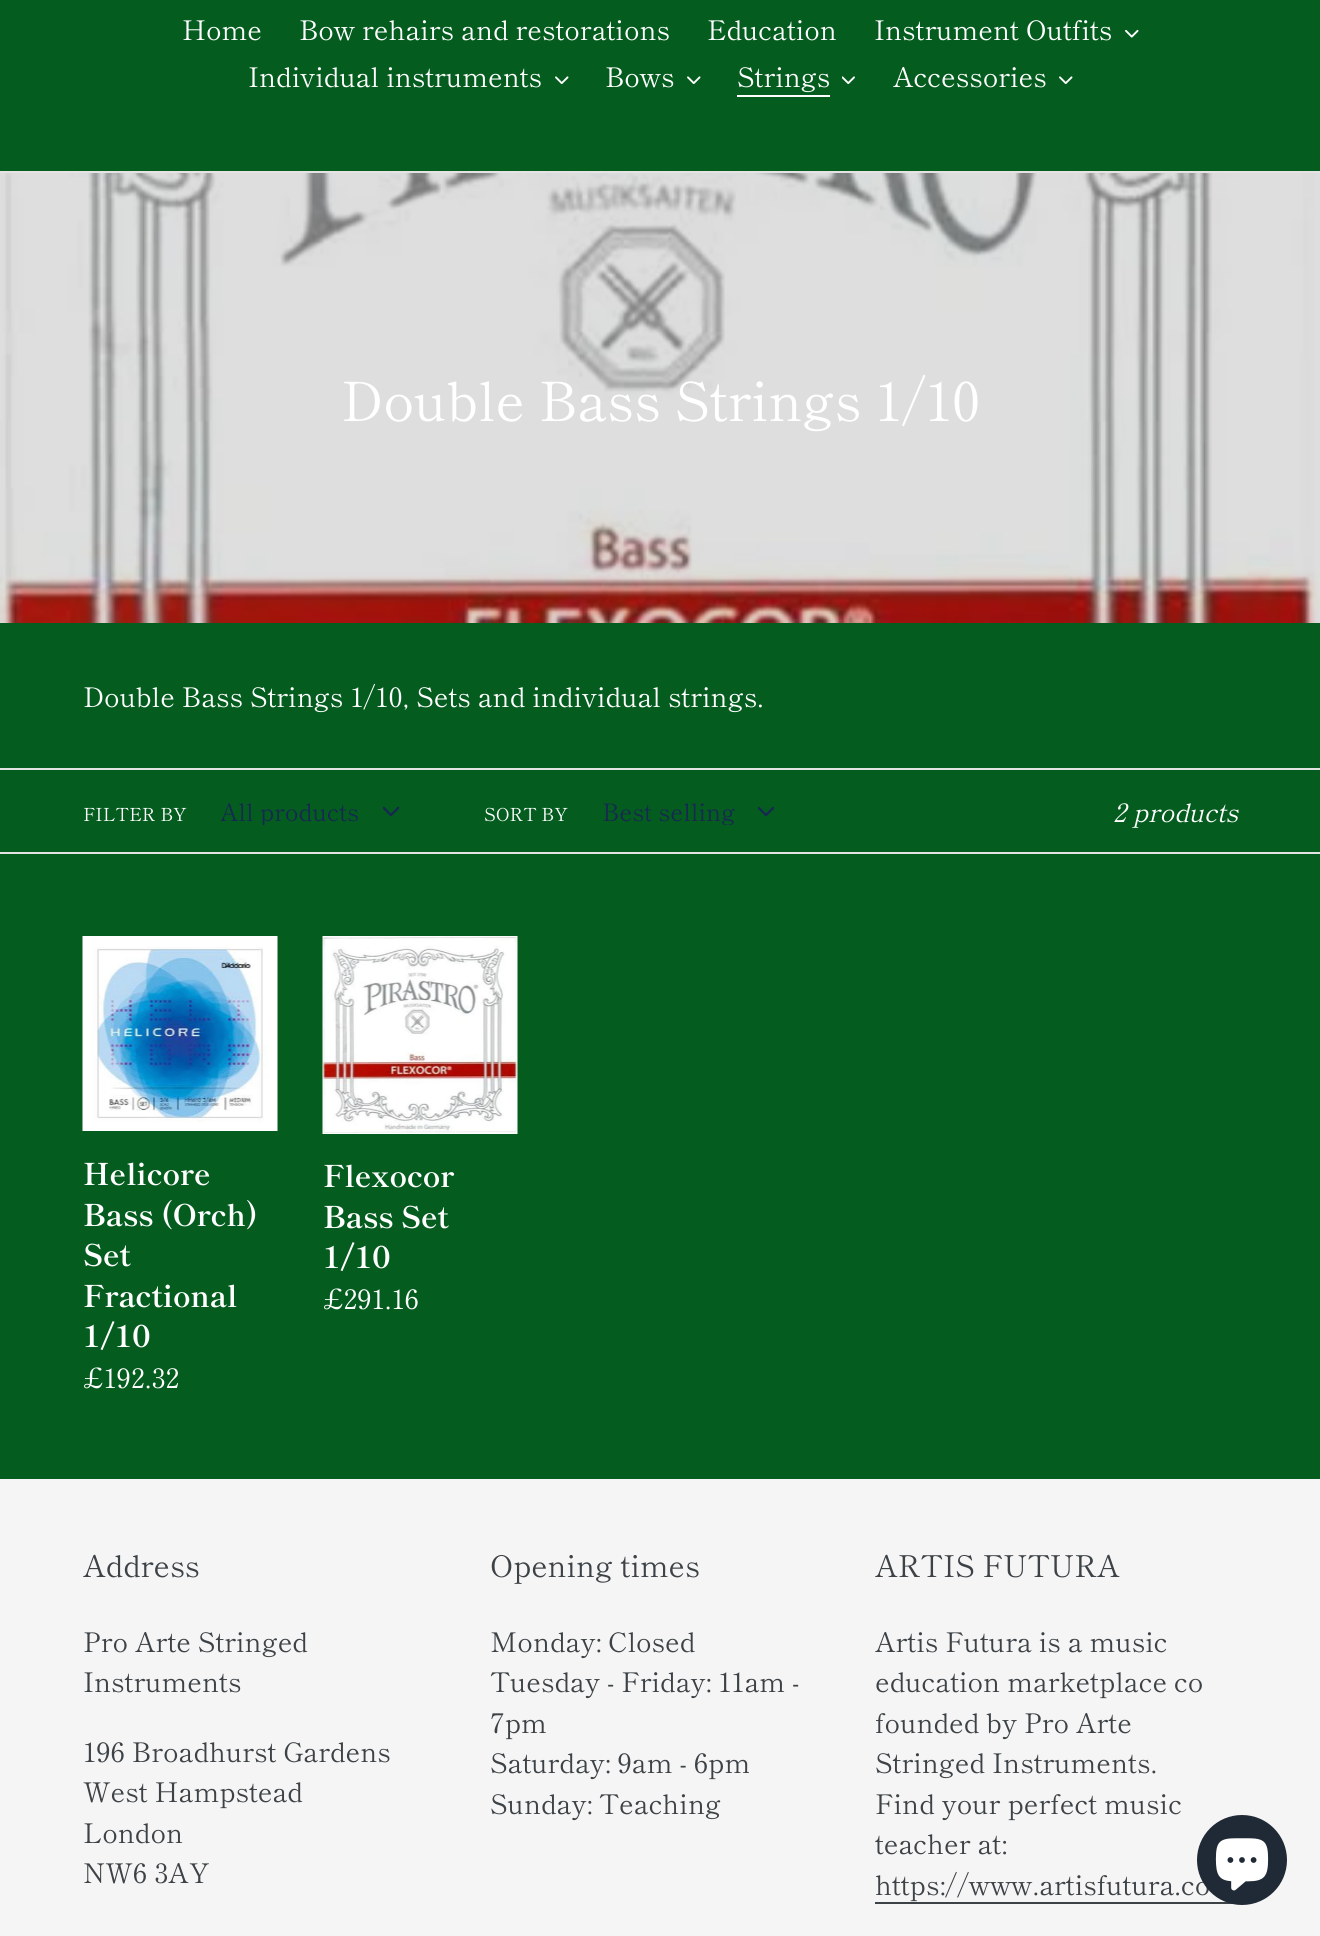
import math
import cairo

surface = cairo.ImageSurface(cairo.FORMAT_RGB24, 1320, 1936)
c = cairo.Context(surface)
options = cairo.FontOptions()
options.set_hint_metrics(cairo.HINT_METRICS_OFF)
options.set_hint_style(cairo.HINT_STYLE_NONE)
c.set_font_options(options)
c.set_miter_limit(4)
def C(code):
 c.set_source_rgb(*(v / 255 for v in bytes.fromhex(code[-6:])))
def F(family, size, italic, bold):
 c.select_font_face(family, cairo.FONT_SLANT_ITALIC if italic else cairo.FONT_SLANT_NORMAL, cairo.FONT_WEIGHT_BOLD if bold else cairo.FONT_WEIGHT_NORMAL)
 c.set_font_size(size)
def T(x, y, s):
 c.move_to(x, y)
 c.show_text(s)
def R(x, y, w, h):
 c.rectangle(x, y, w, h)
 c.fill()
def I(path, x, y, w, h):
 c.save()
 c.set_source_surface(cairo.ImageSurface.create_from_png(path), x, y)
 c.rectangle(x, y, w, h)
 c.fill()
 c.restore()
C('045d1f')
c.paint()
C('e4e4e4')
R(0,171,1320,2)
F('Shippori Mincho',27,0,0)
C('ffffff')
T(182,40,'Home')
T(299,40,'Bow rehairs and restorations')
T(707,40,'Education')
T(874,40,'Instrument Outfits')
I('1.png',1125,29,14,9)
T(248,87,'Individual instruments')
I('2.png',555,76,14,8)
T(605,87,'Bows')
I('2.png',687,76,14,8)
T(737,87,'Strings')
R(737,95,93,2)
I('3.png',842,76,13,8)
T(893,87,'Accessories')
I('2.png',1059,76,14,8)
I('4.png',0,173,1320,450)
F('Shippori Mincho',54,0,0)
T(341,421,'Double Bass Strings 1/10')
F('Shippori Mincho',27,0,0)
T(83,707,'Double Bass Strings 1/10, Sets and individual strings.')
C('e4e4e4')
R(0,768,1320,2)
R(0,852,1320,2)
F('Shippori Mincho',18,0,0)
C('ffffff')
T(83,821,'FILTER BY')
c.save()
c.rectangle(221,797,150,28)
c.clip()
F('Shippori Mincho',24,0,0)
C('162950')
T(220,821,'All products')
c.restore()
I('5.png',383,806,17,11)
T(484,821,'SORT BY')
c.save()
c.rectangle(602,797,142,28)
c.clip()
F('Shippori Mincho',24,0,0)
C('162950')
T(602,821,'Best selling')
c.restore()
I('6.png',758,806,16,11)
F('Shippori Mincho',25.5,1,0)
T(1113,822,'2 products')
I('7.png',82,936,196,195)
F('Shippori Mincho',30,0,1)
T(83,1185,'Helicore')
T(83,1226,'Bass (Orch)')
T(83,1266,'Set')
T(83,1307,'Fractional')
T(83,1347,'1/10')
F('Shippori Mincho',27,0,0)
T(83,1388,'£192.32')
I('8.png',322,936,196,198)
F('Shippori Mincho',30,0,1)
T(323,1187,'Flexocor')
T(323,1228,'Bass Set')
T(323,1268,'1/10')
F('Shippori Mincho',27,0,0)
T(323,1309,'£291.16')
C('f5f5f5')
R(0,1479,1320,457)
F('Shippori Mincho',30,0,0)
C('3d4246')
T(83,1577,'Address')
F('Shippori Mincho',27,0,0)
T(83,1652,'Pro Arte Stringed')
T(83,1692,'Instruments')
T(83,1762,'196 Broadhurst Gardens')
T(83,1802,'West Hampstead')
T(83,1843,'London')
T(83,1883,'NW6 3AY')
F('Shippori Mincho',30,0,0)
T(490,1577,'Opening times')
F('Shippori Mincho',27,0,0)
T(490,1652,'Monday: Closed')
T(490,1692,'Tuesday - Friday: 11am -')
T(490,1733,'7pm')
T(490,1773,'Saturday: 9am - 6pm')
T(490,1814,'Sunday: Teaching')
F('Shippori Mincho',30,0,0)
T(875,1577,'ARTIS FUTURA')
F('Shippori Mincho',27,0,0)
T(875,1652,'Artis Futura is a music')
T(875,1692,'education marketplace co')
T(875,1733,'founded by Pro Arte')
T(875,1773,'Stringed Instruments.')
T(875,1814,'Find your perfect music')
T(875,1854,'teacher at:')
T(875,1895,'https://www.artisfutura.co')
R(875,1902,361,2)
C('202a36')
c.new_path()
c.arc(1242,1860,45,0,2 * math.pi)
c.fill()
I('9.png',1215,1838,54,53)
surface.write_to_png('o.png')
